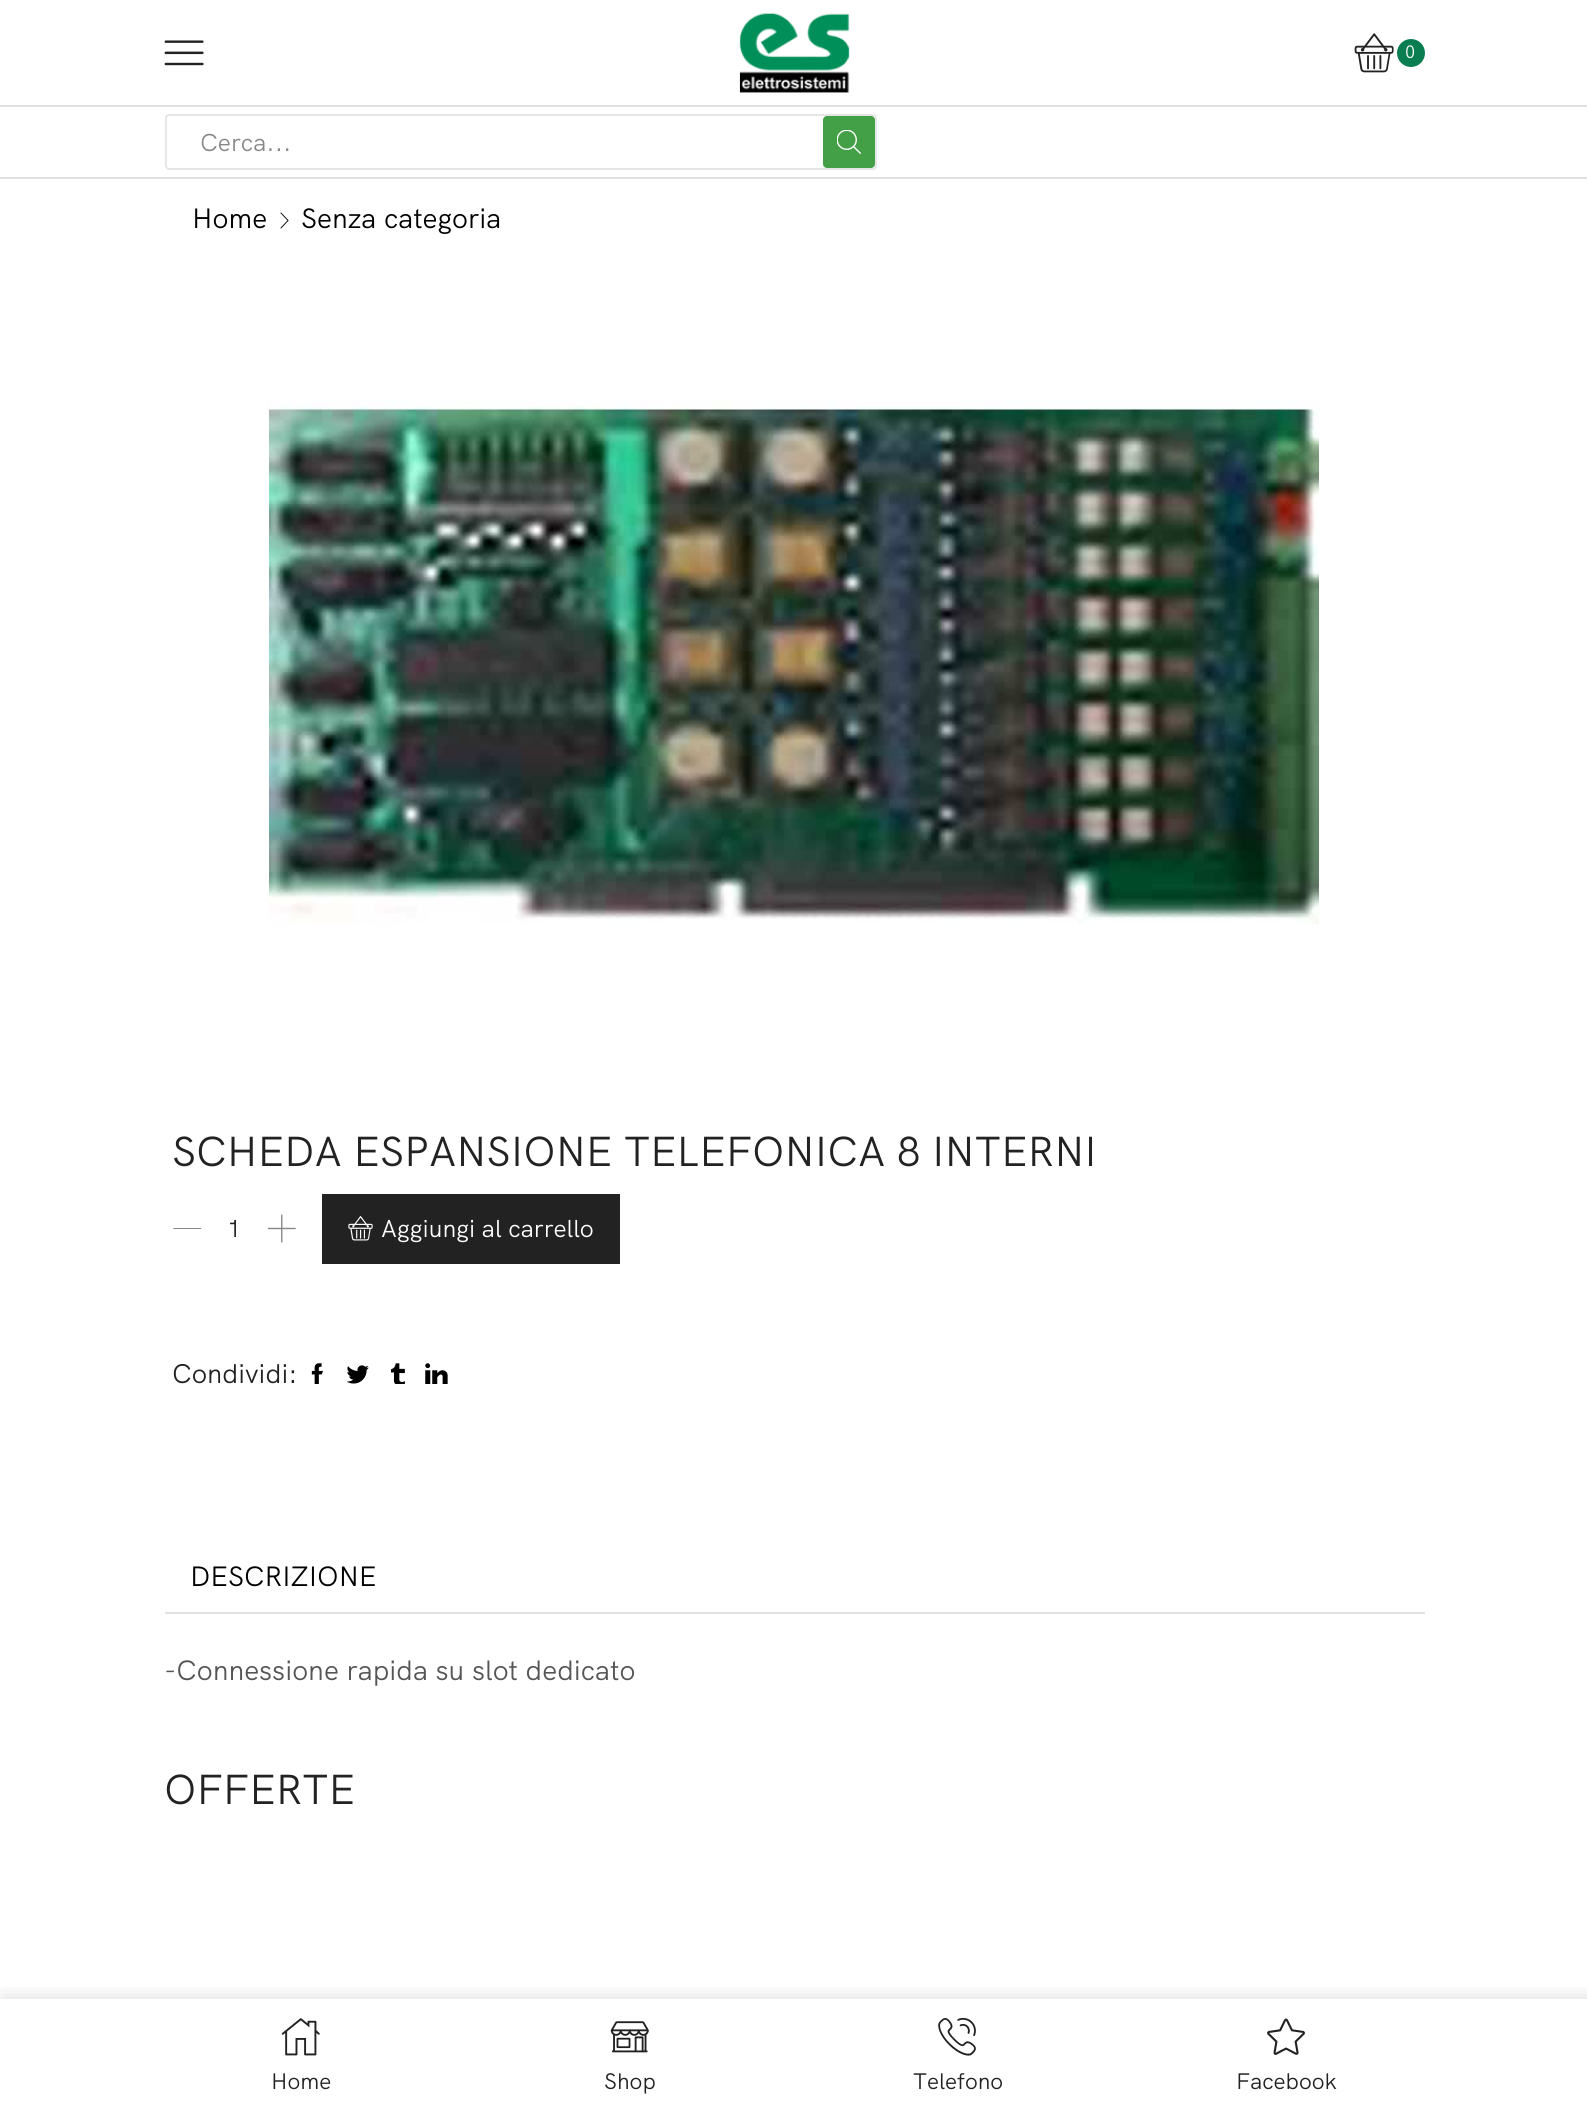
import math
import cairo

surface = cairo.ImageSurface(cairo.FORMAT_RGB24, 1587, 2116)
c = cairo.Context(surface)
options = cairo.FontOptions()
options.set_hint_metrics(cairo.HINT_METRICS_OFF)
options.set_hint_style(cairo.HINT_STYLE_NONE)
c.set_font_options(options)
c.set_miter_limit(4)
def C(code):
 c.set_source_rgb(*(v / 255 for v in bytes.fromhex(code[-6:])))
def F(family, size, italic, bold):
 c.select_font_face(family, cairo.FONT_SLANT_ITALIC if italic else cairo.FONT_SLANT_NORMAL, cairo.FONT_WEIGHT_BOLD if bold else cairo.FONT_WEIGHT_NORMAL)
 c.set_font_size(size)
def T(x, y, s):
 c.move_to(x, y)
 c.show_text(s)
def R(x, y, w, h):
 c.rectangle(x, y, w, h)
 c.fill()
def Q(x, y, w, h, r):
 c.new_sub_path()
 for i, (u, v) in enumerate([(x + w - r, y + h - r), (x + r, y + h - r), (x + r, y + r), (x + w - r, y + r)]):
  c.arc(u, v, r, i * math.pi / 2, (i + 1) * math.pi / 2)
 c.close_path()
def S(x, y, w, h, r, blur, alpha):
 c.push_group_with_content(cairo.CONTENT_ALPHA)
 c.set_operator(cairo.OPERATOR_SOURCE)
 for i in range(15, -16, -2):
  e = blur * i / 6
  if min(w, h) + 2 * e > 0:
   c.set_source_rgba(0, 0, 0, alpha * math.erfc((i - 1) / 8.5) / 2)
   Q(x - e, y - e, w + 2 * e, h + 2 * e, max(0, min(r + e + blur * .6, min(w, h) / 2 + e)))
   c.fill()
 c.mask(c.pop_group())
def I(path, x, y, w, h):
 c.save()
 c.set_source_surface(cairo.ImageSurface.create_from_png(path), x, y)
 c.rectangle(x, y, w, h)
 c.fill()
 c.restore()
C('ffffff')
c.paint()
C('e1e1e1')
R(0,105,1587,2)
I('1.png',164,40,40,26)
I('2.png',739,13,111,80)
I('3.png',1354,33,40,40)
C('0a7e50')
c.arc(1411,53,14,0,2 * math.pi)
c.fill()
F('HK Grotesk',18,0,0)
C('ffffff')
T(1405,58,'0')
C('e1e1e1')
R(0,177,1587,2)
Q(166,115,710,54,3)
C('e6e6e6')
c.stroke()
F('HK Grotesk',24.5,0,0)
C('888888')
T(200,151,'Cerca...')
C('43a047')
Q(823,116,52,52,4)
c.fill()
I('4.png',837,130,24,24)
F('HK Grotesk',28,0,0)
C('000000')
T(192,228,'Home')
I('5.png',280,212,9,17)
T(301,228,'Senza categoria')
I('6.png',269,399,1050,525)
F('HK Grotesk',42,0,0)
C('222222')
T(172,1166,'SCHEDA ESPANSIONE TELEFONICA 8 INTERNI')
C('888888')
c.new_path()
c.move_to(200.5,1228)
c.line_to(173.5,1228)
c.curve_to(173,1228,173,1229,174,1229)
c.line_to(201,1229)
c.curve_to(201.5,1228.5,201,1228,200.5,1228)
c.close_path()
c.fill()
F('HK Grotesk',24.5,0,0)
C('222222')
T(227,1237,'1')
I('7.png',267,1214,29,29)
R(322,1194,298,70)
I('8.png',348,1216,25,25)
C('ffffff')
T(381,1237,'Aggiungi al carrello')
F('HK Grotesk',27,0,0)
C('222222')
T(172,1383,'Condividi:')
I('9.png',311,1363,12,21)
I('10.png',347,1365,22,19)
I('11.png',391,1363,14,21)
I('12.png',425,1363,23,21)
F('HK Grotesk',28,0,0)
C('000000')
T(190,1586,'DESCRIZIONE')
C('e1e1e1')
R(165,1612,1260,2)
C('555555')
T(164,1680,'-Connessione rapida su slot dedicato')
F('HK Grotesk',42,0,0)
C('222222')
T(164,1804,'OFFERTE')
c.save()
c.rectangle(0,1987,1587,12)
c.clip()
C('000000')
S(4,1999,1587,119,0,10.5,.15)
c.restore()
I('13.png',281,2018,39,38)
F('HK Grotesk',22.5,0,0)
T(271,2089,'Home')
I('14.png',610,2021,39,32)
T(604,2089,'Shop')
I('15.png',938,2017,38,39)
T(913,2089,'Telefono')
I('16.png',1267,2018,38,37)
T(1236,2089,'Facebook')
surface.write_to_png('o.png')
